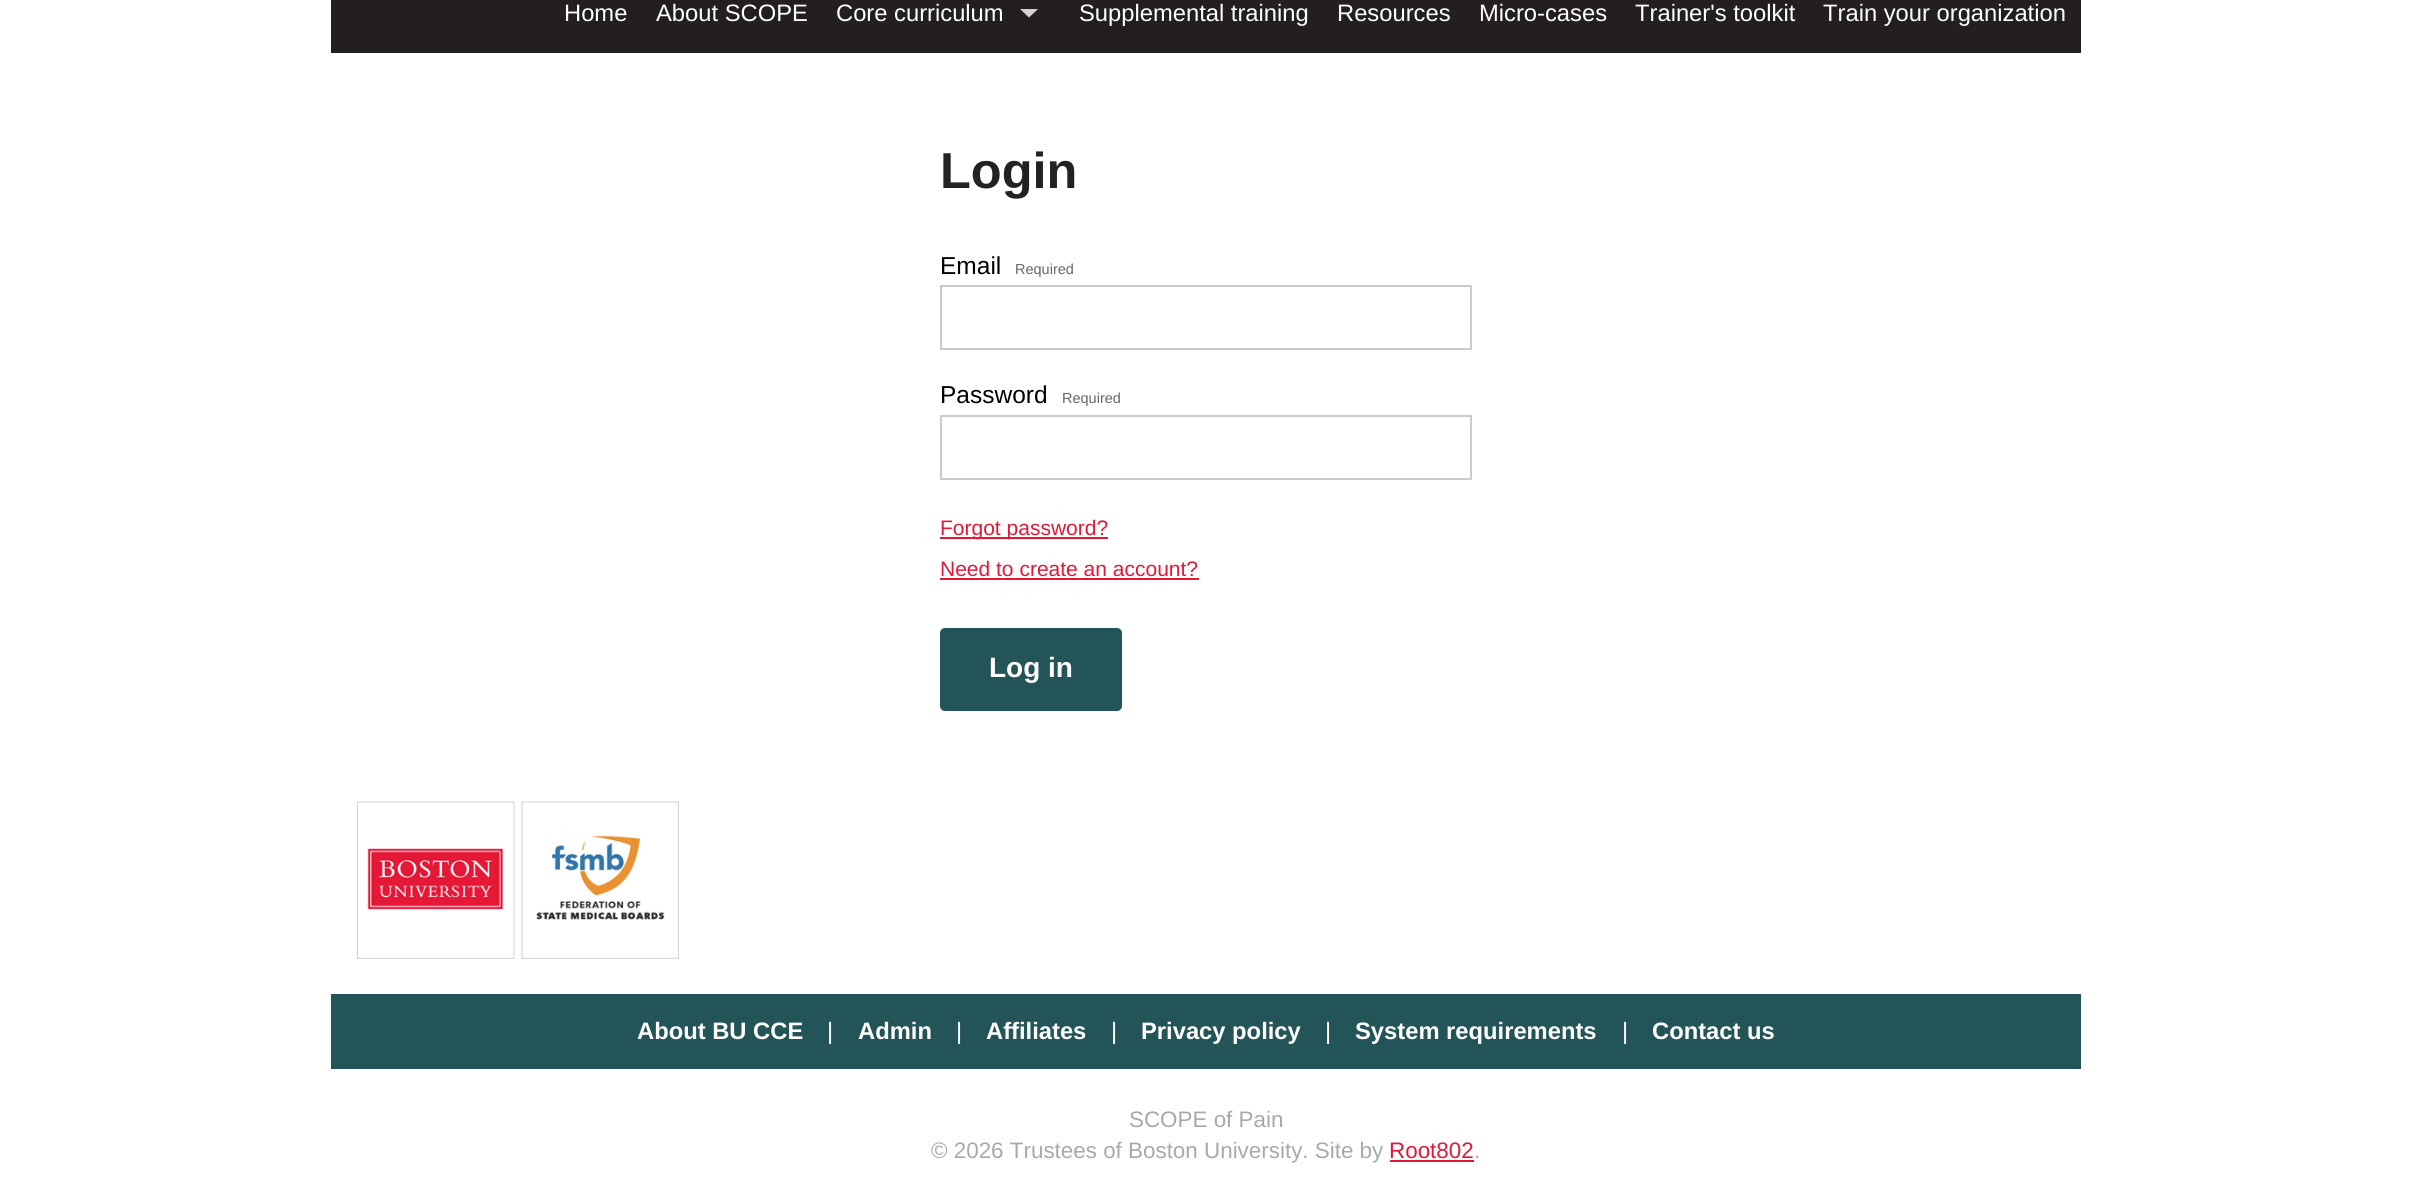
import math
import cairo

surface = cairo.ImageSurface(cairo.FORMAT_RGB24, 2410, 1183)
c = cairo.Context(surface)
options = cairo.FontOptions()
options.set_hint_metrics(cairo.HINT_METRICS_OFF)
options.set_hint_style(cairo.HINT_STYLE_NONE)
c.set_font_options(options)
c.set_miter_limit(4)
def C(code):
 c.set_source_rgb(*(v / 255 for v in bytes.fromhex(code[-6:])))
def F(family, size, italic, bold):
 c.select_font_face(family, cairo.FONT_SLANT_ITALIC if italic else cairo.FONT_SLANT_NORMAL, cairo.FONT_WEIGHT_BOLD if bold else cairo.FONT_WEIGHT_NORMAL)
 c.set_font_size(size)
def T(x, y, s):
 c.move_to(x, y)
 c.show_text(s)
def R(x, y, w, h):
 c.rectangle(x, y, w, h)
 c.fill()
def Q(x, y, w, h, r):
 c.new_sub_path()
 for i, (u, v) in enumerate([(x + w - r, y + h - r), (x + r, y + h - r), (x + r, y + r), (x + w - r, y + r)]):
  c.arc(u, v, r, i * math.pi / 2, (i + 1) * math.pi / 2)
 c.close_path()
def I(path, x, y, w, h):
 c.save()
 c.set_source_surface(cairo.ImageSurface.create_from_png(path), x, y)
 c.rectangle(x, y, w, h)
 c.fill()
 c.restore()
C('ffffff')
c.paint()
C('231f20')
R(331,0,492,53)
F('Liberation Sans',23.75,0,0)
C('ffffff')
T(564,21,'Home')
T(656,21,'About SCOPE')
C('231f20')
R(823,0,1258,53)
C('ffffff')
T(836,21,'Core curriculum')
C('d3d2d2')
c.new_path()
c.move_to(1020,9)
c.line_to(1038,9)
c.line_to(1029,17.5)
c.close_path()
c.fill()
C('ffffff')
T(1079,21,'Supplemental training')
T(1337,21,'Resources')
T(1479,21,'Micro-cases')
T(1635,21,'Trainer\'s toolkit')
T(1823,21,'Train your organization')
F('Liberation Sans',50.5,0,1)
C('222222')
T(940,188,'Login')
F('Liberation Sans',24.5,0,0)
C('000000')
T(940,274,'Email')
F('Liberation Sans',14.5,0,0)
C('676767')
T(1015,274,'Required')
c.rectangle(941,286,530,63)
C('cccccc')
c.stroke()
F('Liberation Sans',24.5,0,0)
C('000000')
T(940,403,'Password')
F('Liberation Sans',14.5,0,0)
C('676767')
T(1062,403,'Required')
c.rectangle(941,416,530,63)
C('cccccc')
c.stroke()
C('e31837')
R(940,537,168,2)
F('Liberation Sans',21,0,0)
T(940,535,'Forgot password?')
T(940,576,'Need to create an account?')
R(940,578,259,2)
C('235458')
Q(940,628,182,83,5)
c.fill()
F('Liberation Sans',28,0,1)
C('ffffff')
T(989,677,'Log in')
I('1.png',357,801,158,158)
I('2.png',521,801,158,158)
C('235458')
R(331,994,1750,75)
F('Liberation Sans',23.75,0,1)
C('ffffff')
T(637,1039,'About BU CCE')
F('Liberation Sans',23.75,0,0)
T(827,1039,'|')
F('Liberation Sans',23.75,0,1)
T(858,1039,'Admin')
F('Liberation Sans',23.75,0,0)
T(956,1039,'|')
F('Liberation Sans',23.75,0,1)
T(986,1039,'Affiliates')
F('Liberation Sans',23.75,0,0)
T(1111,1039,'|')
F('Liberation Sans',23.75,0,1)
T(1141,1039,'Privacy policy')
F('Liberation Sans',23.75,0,0)
T(1325,1039,'|')
F('Liberation Sans',23.75,0,1)
T(1355,1039,'System requirements')
F('Liberation Sans',23.75,0,0)
T(1622,1039,'|')
F('Liberation Sans',23.75,0,1)
T(1652,1039,'Contact us')
F('Liberation Sans',22.4,0,0)
C('a7a9ac')
T(1129,1127,'SCOPE of Pain')
T(931,1158,'© 2026 Trustees of Boston University. Site by')
C('e31837')
T(1389,1158,'Root802')
R(1390,1160,84,2)
C('a7a9ac')
T(1474,1158,'.')
surface.write_to_png('o.png')
